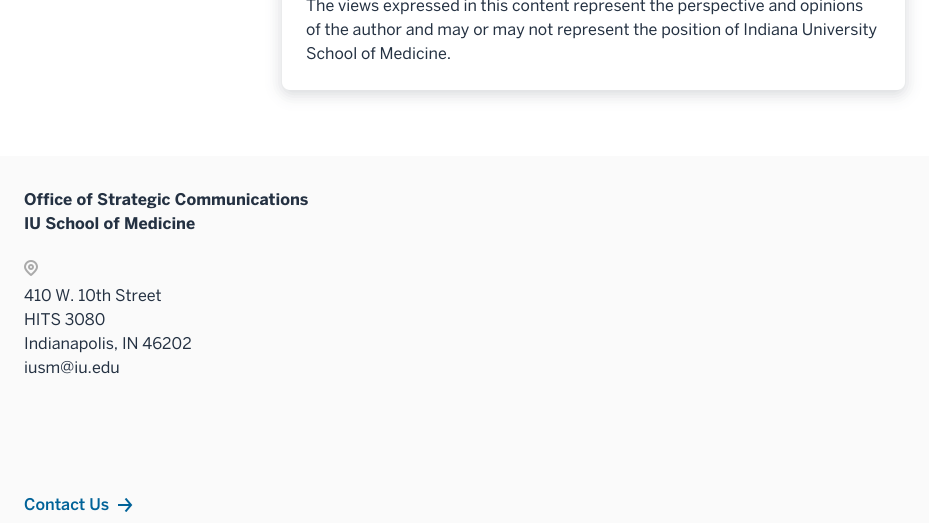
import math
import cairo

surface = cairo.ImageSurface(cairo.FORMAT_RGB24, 929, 523)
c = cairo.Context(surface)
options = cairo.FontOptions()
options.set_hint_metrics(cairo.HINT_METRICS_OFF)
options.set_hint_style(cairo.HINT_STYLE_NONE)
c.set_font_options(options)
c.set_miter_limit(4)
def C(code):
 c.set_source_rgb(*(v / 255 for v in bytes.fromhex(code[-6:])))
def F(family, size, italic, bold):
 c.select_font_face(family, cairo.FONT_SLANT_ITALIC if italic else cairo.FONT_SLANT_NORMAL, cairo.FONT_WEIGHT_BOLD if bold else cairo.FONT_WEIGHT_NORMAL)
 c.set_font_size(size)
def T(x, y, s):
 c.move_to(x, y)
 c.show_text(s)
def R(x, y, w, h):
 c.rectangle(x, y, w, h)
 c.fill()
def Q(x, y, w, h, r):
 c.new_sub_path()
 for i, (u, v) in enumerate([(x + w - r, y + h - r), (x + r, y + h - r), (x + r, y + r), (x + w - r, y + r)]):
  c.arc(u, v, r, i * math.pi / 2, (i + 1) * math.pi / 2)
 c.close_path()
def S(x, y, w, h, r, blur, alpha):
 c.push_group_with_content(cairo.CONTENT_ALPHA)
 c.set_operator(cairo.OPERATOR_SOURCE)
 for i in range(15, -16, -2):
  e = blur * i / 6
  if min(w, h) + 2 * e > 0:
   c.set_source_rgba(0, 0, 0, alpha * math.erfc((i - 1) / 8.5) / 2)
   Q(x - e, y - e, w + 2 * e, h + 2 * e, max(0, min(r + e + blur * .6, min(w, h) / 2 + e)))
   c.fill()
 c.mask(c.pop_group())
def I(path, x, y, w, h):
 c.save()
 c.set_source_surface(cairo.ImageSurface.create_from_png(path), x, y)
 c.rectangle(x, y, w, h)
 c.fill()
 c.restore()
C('ffffff')
c.paint()
C('243142')
S(282,-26,623,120,8,8,.2)
C('ffffff')
Q(282,-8,623,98,8)
c.fill()
F('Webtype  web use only',16,0,0)
C('243142')
T(306,11,'The views expressed in this content represent the perspective and opinions')
T(306,35,'of the author and may or may not represent the position of Indiana University')
T(306,59,'School of Medicine.')
C('fafafa')
R(0,156,929,367)
F('Webtype  web use only',16,0,1)
C('243142')
T(24,205,'Office of Strategic Communications')
T(24,229,'IU School of Medicine')
I('1.png',24,260,14,16)
F('Webtype  web use only',16,0,0)
T(24,301,'410 W. 10th Street')
T(24,325,'HITS 3080')
T(24,349,'Indianapolis, IN 46202')
T(24,373,'iusm@iu.edu')
F('Webtype  web use only Medium',16,0,0)
C('006298')
T(24,510,'Contact Us')
I('2.png',118,498,15,14)
surface.write_to_png('o.png')
